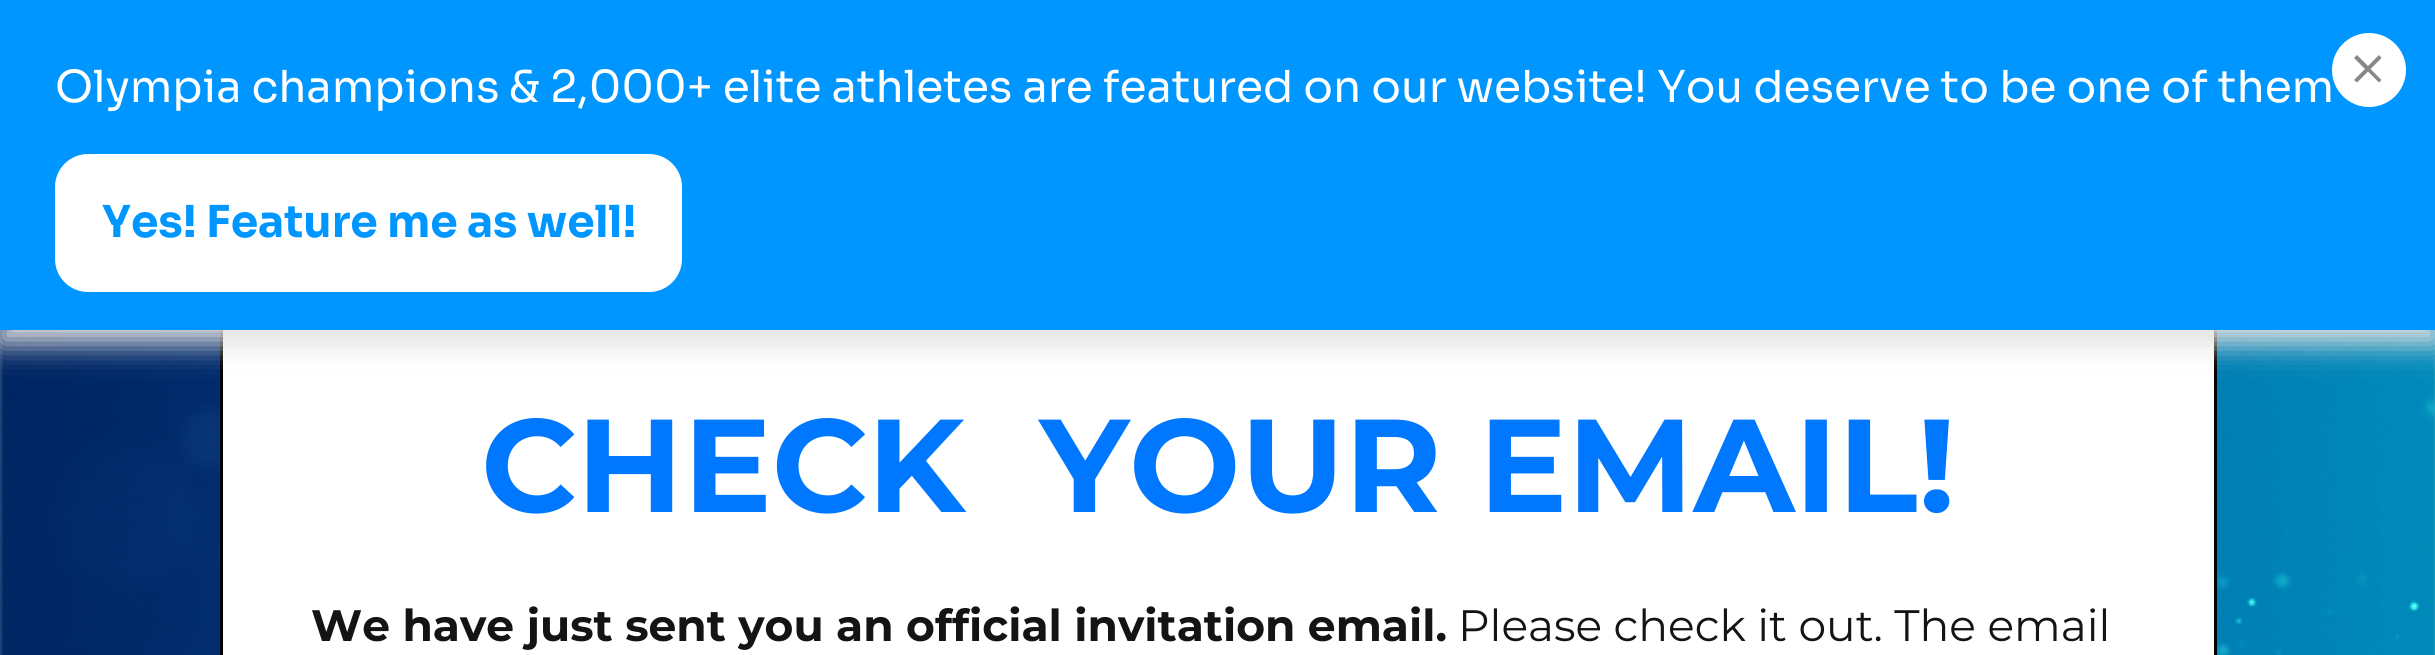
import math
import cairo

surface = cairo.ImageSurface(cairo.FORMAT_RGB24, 2435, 655)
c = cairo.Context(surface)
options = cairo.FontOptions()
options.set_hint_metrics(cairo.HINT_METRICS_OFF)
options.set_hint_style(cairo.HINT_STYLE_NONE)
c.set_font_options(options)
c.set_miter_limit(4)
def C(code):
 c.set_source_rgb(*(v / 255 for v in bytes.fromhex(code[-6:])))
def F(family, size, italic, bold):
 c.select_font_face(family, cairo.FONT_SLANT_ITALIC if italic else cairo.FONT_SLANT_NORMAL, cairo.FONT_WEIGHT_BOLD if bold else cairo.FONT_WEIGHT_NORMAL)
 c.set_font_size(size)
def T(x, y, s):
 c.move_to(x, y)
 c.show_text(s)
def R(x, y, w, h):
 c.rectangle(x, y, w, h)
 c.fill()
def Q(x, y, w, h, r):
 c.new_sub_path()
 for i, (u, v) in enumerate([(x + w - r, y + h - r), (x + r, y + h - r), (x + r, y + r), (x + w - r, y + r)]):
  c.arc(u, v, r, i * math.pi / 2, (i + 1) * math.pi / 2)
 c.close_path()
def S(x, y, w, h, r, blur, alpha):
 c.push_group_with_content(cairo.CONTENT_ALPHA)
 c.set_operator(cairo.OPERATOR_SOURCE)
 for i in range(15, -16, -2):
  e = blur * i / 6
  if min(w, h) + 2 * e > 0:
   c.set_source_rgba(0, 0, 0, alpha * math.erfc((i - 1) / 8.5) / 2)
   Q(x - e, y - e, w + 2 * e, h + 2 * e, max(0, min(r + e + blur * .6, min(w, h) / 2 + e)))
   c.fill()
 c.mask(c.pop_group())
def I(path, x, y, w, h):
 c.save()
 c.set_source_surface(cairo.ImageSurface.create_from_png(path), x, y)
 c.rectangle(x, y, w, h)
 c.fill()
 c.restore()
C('ffffff')
c.paint()
I('1.png',0,330,2435,325)
c.rectangle(221.5,221.5,1994,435)
C('000000')
c.set_line_width(3)
c.stroke()
C('ffffff')
R(223,330,1991,325)
C('e0e0e0')
S(0,14,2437,330,0,14,1)
C('0096ff')
R(0,0,2435,330)
F('Sora',44,0,0)
C('ffffff')
T(55,102,'Olympia champions & 2,000+ elite athletes are featured on our website! You deserve to be one of them')
Q(55,154,627,138,33)
c.fill()
F('Sora',44,0,1)
C('0096ff')
T(102,237,'Yes! Feature me as well!')
C('ffffff')
c.new_path()
c.arc(2369,70,37,0,2 * math.pi)
c.fill()
C('878787')
c.new_path()
c.move_to(2357,55)
c.line_to(2368,66)
c.line_to(2379,55)
c.line_to(2381.5,58)
c.line_to(2370.5,69)
c.line_to(2381.5,80)
c.line_to(2379,82.5)
c.line_to(2368,71.5)
c.line_to(2357,82.5)
c.line_to(2354,80)
c.line_to(2365,69)
c.line_to(2354,58)
c.close_path()
c.fill()
F('Montserrat',132,0,1)
C('0077ff')
T(481,512,'CHECK  YOUR EMAIL!')
F('Montserrat',44,0,1)
C('141414')
T(311,641,'We have just sent you an official invitation email.')
F('Montserrat',44,0,0)
T(1458,641,'Please check it out. The email')
surface.write_to_png('o.png')
